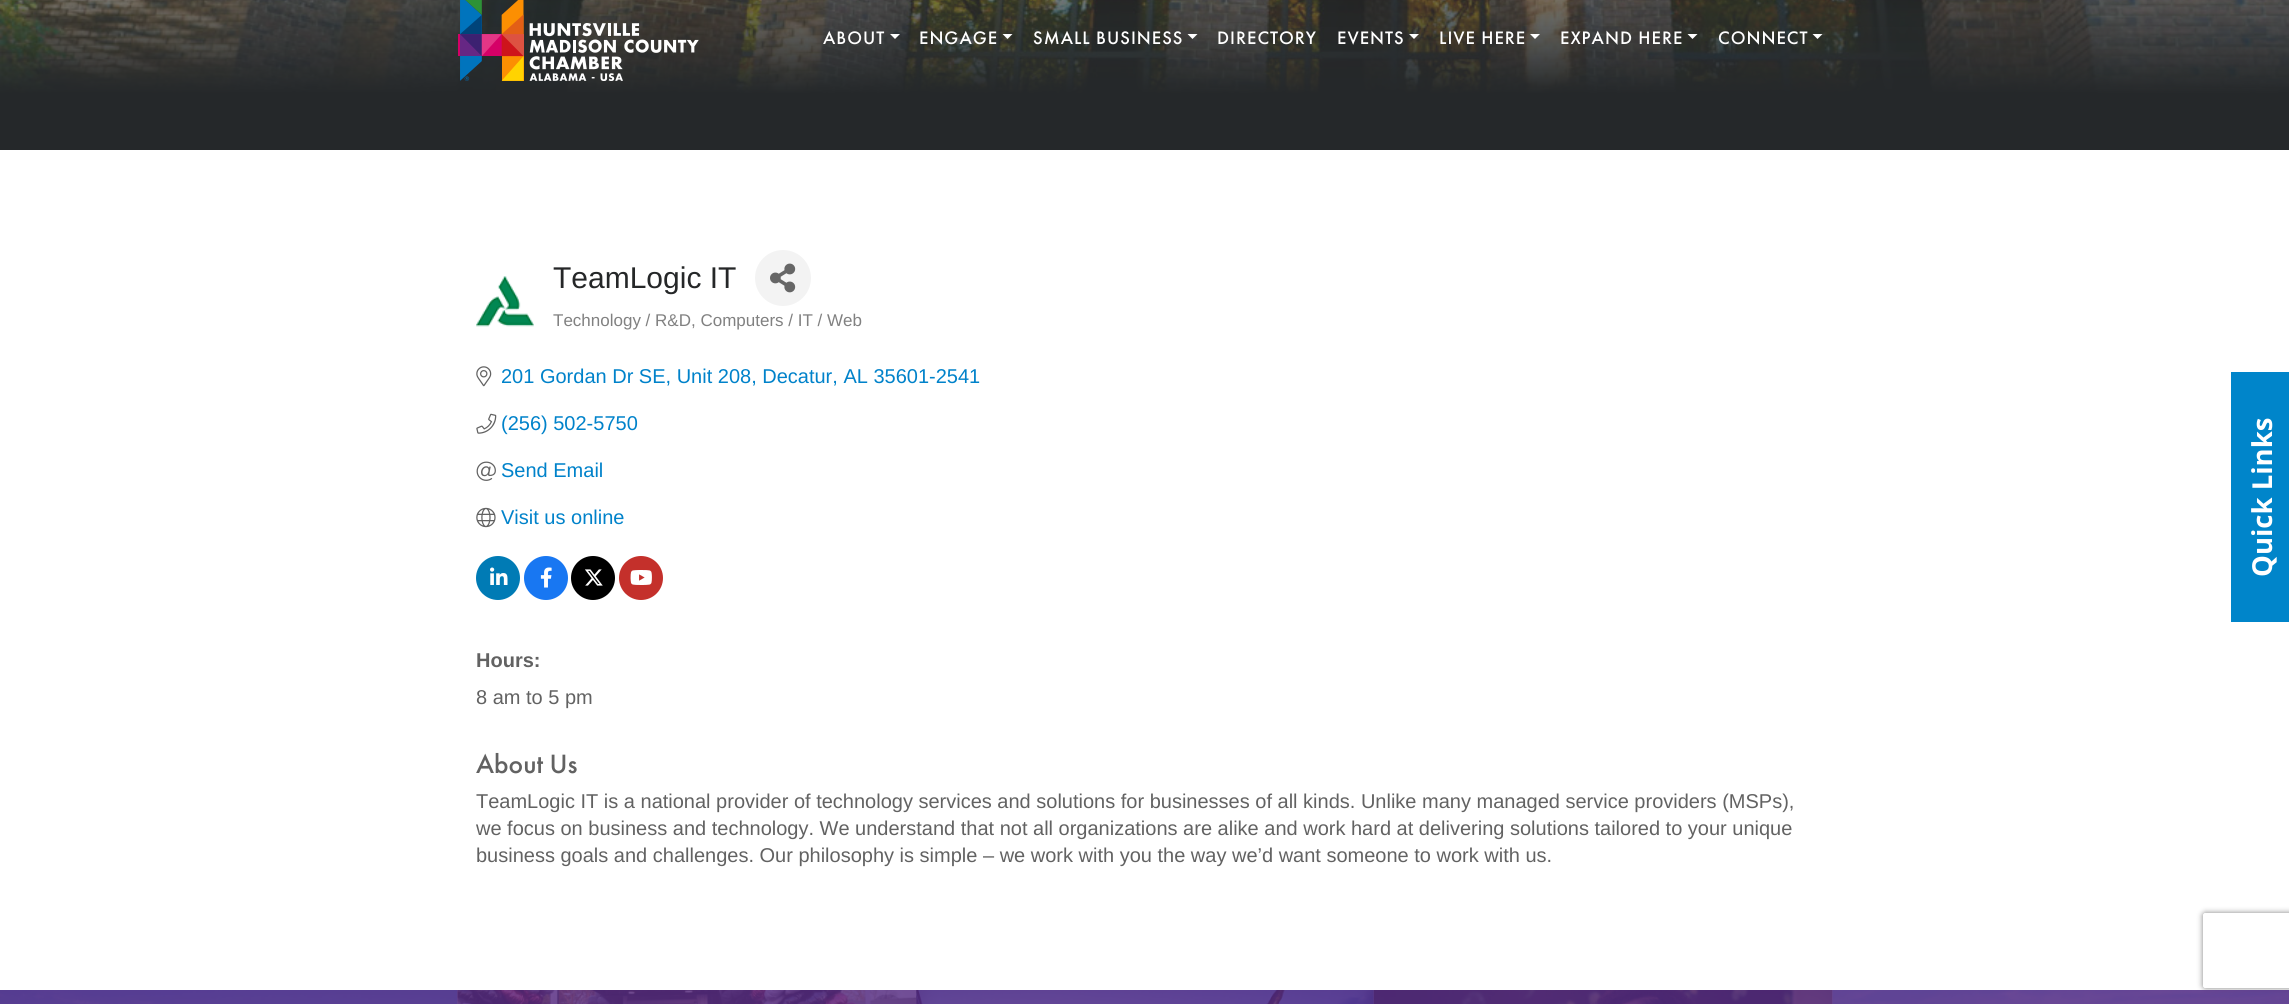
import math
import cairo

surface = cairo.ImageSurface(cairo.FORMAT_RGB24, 2289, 1004)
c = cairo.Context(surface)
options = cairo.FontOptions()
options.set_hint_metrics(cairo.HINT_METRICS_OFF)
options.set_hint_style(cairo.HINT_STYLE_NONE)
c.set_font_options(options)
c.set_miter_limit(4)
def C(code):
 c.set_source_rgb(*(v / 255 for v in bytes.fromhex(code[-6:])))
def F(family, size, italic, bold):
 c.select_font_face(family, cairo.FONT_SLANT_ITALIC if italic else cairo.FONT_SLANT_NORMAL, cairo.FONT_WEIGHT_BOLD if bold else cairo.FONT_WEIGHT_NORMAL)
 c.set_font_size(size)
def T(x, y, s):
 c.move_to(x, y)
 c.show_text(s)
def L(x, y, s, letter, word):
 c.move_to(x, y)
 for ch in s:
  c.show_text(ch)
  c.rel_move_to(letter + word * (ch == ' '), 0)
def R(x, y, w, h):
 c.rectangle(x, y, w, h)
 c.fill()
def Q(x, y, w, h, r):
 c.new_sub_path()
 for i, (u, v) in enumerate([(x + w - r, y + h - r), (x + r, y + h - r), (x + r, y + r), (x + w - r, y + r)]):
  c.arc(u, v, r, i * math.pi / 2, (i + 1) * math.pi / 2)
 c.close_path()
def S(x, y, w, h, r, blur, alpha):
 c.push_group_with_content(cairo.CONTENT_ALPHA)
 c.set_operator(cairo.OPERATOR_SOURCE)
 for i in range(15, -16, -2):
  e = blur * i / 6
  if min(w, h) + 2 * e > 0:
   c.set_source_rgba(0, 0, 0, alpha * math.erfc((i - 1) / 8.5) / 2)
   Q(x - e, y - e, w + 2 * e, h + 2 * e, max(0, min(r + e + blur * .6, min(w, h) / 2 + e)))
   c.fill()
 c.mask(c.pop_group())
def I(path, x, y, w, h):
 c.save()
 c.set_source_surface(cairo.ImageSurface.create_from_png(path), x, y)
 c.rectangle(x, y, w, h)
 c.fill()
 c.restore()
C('ffffff')
c.paint()
I('1.png',0,0,2289,150)
I('2.png',458,0,241,81)
F('Futura PT Medium',18.75,0,0)
C('ffffff')
L(823,44,'ABOUT',1,0)
c.new_path()
c.move_to(890,34)
c.line_to(900,34)
c.line_to(895,39)
c.close_path()
c.fill()
L(919,44,'ENGAGE',1,0)
c.new_path()
c.move_to(1002.5,34)
c.line_to(1012.5,34)
c.line_to(1007.5,39)
c.close_path()
c.fill()
L(1033,44,'SMALL BUSINESS',1,0)
c.new_path()
c.move_to(1187.5,34)
c.line_to(1197.5,34)
c.line_to(1192.5,39)
c.close_path()
c.fill()
L(1217,44,'DIRECTORY',1,0)
L(1337,44,'EVENTS',1,0)
c.new_path()
c.move_to(1409,34)
c.line_to(1419,34)
c.line_to(1414,39)
c.close_path()
c.fill()
L(1439,44,'LIVE HERE',1,0)
c.new_path()
c.move_to(1530,34)
c.line_to(1540,34)
c.line_to(1535,39)
c.close_path()
c.fill()
L(1560,44,'EXPAND HERE',1,0)
c.new_path()
c.move_to(1687.5,34)
c.line_to(1697.5,34)
c.line_to(1692.5,39)
c.close_path()
c.fill()
L(1718,44,'CONNECT',1,0)
c.new_path()
c.move_to(1812.5,34)
c.line_to(1822.5,34)
c.line_to(1817.5,39)
c.close_path()
c.fill()
I('3.png',476,276,58,51)
F('Liberation Sans',30,0,0)
C('252728')
T(553,288,'TeamLogic IT')
C('f3f3f3')
c.new_path()
c.arc(783,278,28,0,2 * math.pi)
c.fill()
I('4.png',770,263,26,30)
F('Liberation Sans',17,0,0)
C('818181')
T(553,326,'Technology / R&D, Computers / IT / Web')
I('5.png',476,366,16,21)
F('Liberation Sans',20,0,0)
C('0082ca')
T(501,383,'201 Gordan Dr SE, Unit 208, Decatur, AL 35601-2541')
I('6.png',476,413,21,21)
T(501,430,'(256) 502-5750')
I('7.png',476,461,20,20)
T(501,477,'Send Email')
I('8.png',476,507,20,21)
T(501,524,'Visit us online')
C('007bb5')
c.new_path()
c.arc(498,578,22,0,2 * math.pi)
c.fill()
I('9.png',490,567,18,18)
C('1877f2')
c.arc(546,578,22,0,2 * math.pi)
c.fill()
I('10.png',540,567,12,21)
C('000000')
c.arc(593,578,22,0,2 * math.pi)
c.fill()
I('11.png',585,569,18,17)
C('c4302b')
c.arc(641,578,22,0,2 * math.pi)
c.fill()
I('12.png',630,570,22,15)
F('Liberation Sans',20,0,1)
C('626262')
T(476,667,'Hours:')
F('Liberation Sans',20,0,0)
T(476,704,'8 am to 5 pm')
F('Futura PT Medium',27.5,0,0)
T(476,773,'About Us')
F('Liberation Sans',20,0,0)
T(476,808,'TeamLogic IT is a national provider of technology services and solutions for businesses of all kinds. Unlike many managed service providers (MSPs),')
T(476,835,'we focus on business and technology. We understand that not all organizations are alike and work hard at delivering solutions tailored to your unique')
T(476,862,'business goals and challenges. Our philosophy is simple – we work with you the way we’d want someone to work with us.')
I('13.png',0,990,458,14)
I('14.png',457,990,460,14)
c.set_source_rgba(0.345,0.173,0.514,0.83)
R(0,990,458,14)
I('15.png',916,990,458,14)
I('16.png',1373,990,460,14)
R(916,990,458,14)
I('17.png',1832,990,457,14)
R(1374,990,459,14)
c.save()
c.set_fill_rule(cairo.FILL_RULE_EVEN_ODD)
c.new_path()
c.move_to(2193,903)
c.line_to(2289,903)
c.line_to(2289,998)
c.line_to(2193,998)
c.close_path()
c.move_to(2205.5,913)
c.line_to(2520.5,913)
c.curve_to(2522,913,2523,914,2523,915.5)
c.line_to(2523,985.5)
c.curve_to(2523,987,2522,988,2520.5,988)
c.line_to(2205.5,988)
c.curve_to(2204,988,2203,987,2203,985.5)
c.line_to(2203,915.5)
c.curve_to(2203,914,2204,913,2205.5,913)
c.close_path()
c.clip()
C('808080')
S(2203,913,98,75,2.5,3,1)
c.restore()
R(1833,990,456,14)
C('0085ca')
R(2231,372,58,250)
F('Open Sans',27.5,0,1)
C('ffffff')
c.save()
c.translate(2272,577)
c.rotate(-90 * math.pi / 180)
T(0,0,'Quick Links')
c.restore()
surface.write_to_png('o.png')
